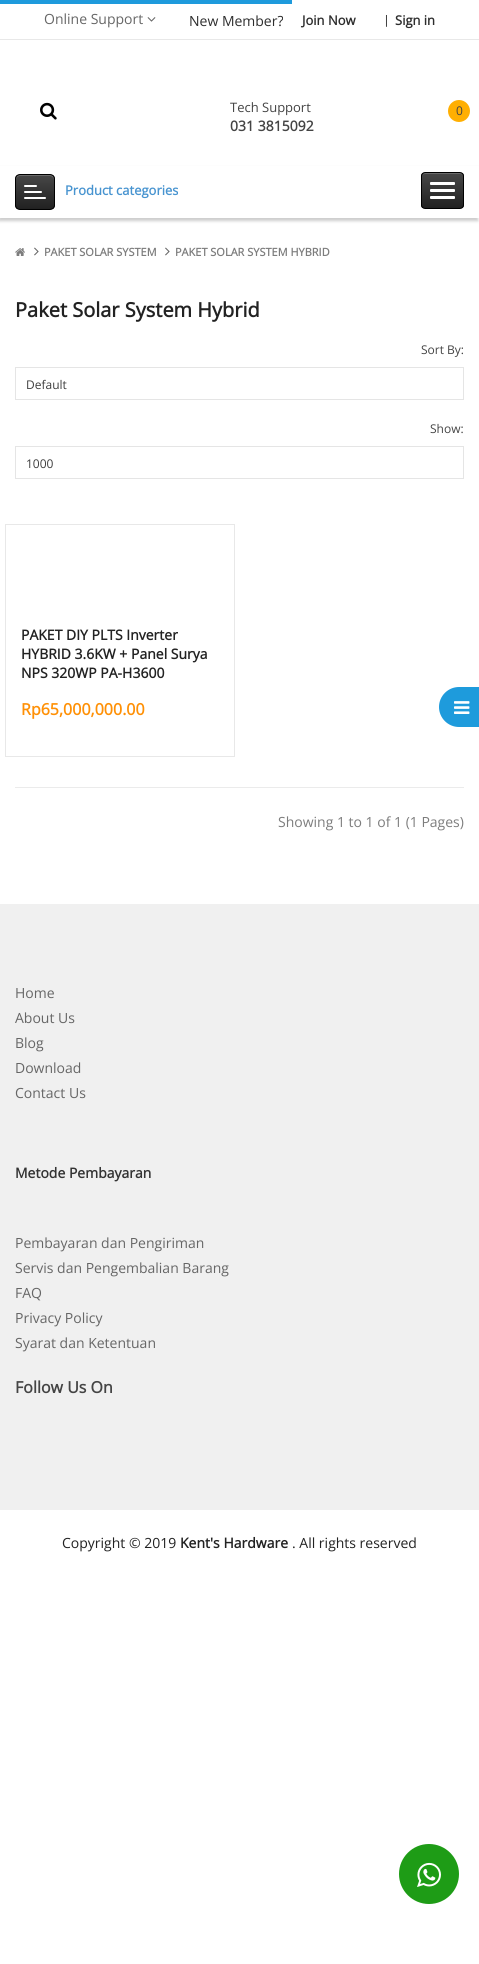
import math
import cairo

surface = cairo.ImageSurface(cairo.FORMAT_RGB24, 479, 1964)
c = cairo.Context(surface)
options = cairo.FontOptions()
options.set_hint_metrics(cairo.HINT_METRICS_OFF)
options.set_hint_style(cairo.HINT_STYLE_NONE)
c.set_font_options(options)
c.set_miter_limit(4)
def C(code):
 c.set_source_rgb(*(v / 255 for v in bytes.fromhex(code[-6:])))
def F(family, size, italic, bold):
 c.select_font_face(family, cairo.FONT_SLANT_ITALIC if italic else cairo.FONT_SLANT_NORMAL, cairo.FONT_WEIGHT_BOLD if bold else cairo.FONT_WEIGHT_NORMAL)
 c.set_font_size(size)
def T(x, y, s):
 c.move_to(x, y)
 c.show_text(s)
def R(x, y, w, h):
 c.rectangle(x, y, w, h)
 c.fill()
def Q(x, y, w, h, r):
 c.new_sub_path()
 for i, (u, v) in enumerate([(x + w - r, y + h - r), (x + r, y + h - r), (x + r, y + r), (x + w - r, y + r)]):
  c.arc(u, v, r, i * math.pi / 2, (i + 1) * math.pi / 2)
 c.close_path()
def S(x, y, w, h, r, blur, alpha):
 c.push_group_with_content(cairo.CONTENT_ALPHA)
 c.set_operator(cairo.OPERATOR_SOURCE)
 for i in range(15, -16, -2):
  e = blur * i / 6
  if min(w, h) + 2 * e > 0:
   c.set_source_rgba(0, 0, 0, alpha * math.erfc((i - 1) / 8.5) / 2)
   Q(x - e, y - e, w + 2 * e, h + 2 * e, max(0, min(r + e + blur * .6, min(w, h) / 2 + e)))
   c.fill()
 c.mask(c.pop_group())
def I(path, x, y, w, h):
 c.save()
 c.set_source_surface(cairo.ImageSurface.create_from_png(path), x, y)
 c.rectangle(x, y, w, h)
 c.fill()
 c.restore()
C('ffffff')
c.paint()
C('1e9adc')
R(0,0,292,4)
C('e8e8e8')
R(0,39,479,1)
F('Open Sans',14,0,0)
C('666666')
T(44,24,'Online Support')
I('1.png',147,17,9,5)
C('2d2d2d')
T(189,26,'New Member?')
F('Open Sans',13,0,1)
T(302,25,'Join Now')
F('Liberation Serif',13,0,1)
T(385,24,'|')
F('Open Sans',13,0,1)
T(395,25,'Sign in')
I('2.png',40,102,17,18)
F('Open Sans',13,0,0)
C('444444')
T(230,112,'Tech Support')
F('Open Sans',14,0,1)
T(230,131,'031 3815092')
C('ffaf02')
c.new_path()
c.arc(459,111,11,0,2 * math.pi)
c.fill()
F('Open Sans',12,0,0)
C('444444')
T(456,115,'0')
C('000000')
S(-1,168,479,53,0,1.5,.2)
C('ffffff')
R(0,166,479,52)
c.save()
Q(15,174,40,36,5)
c.clip()
gradient = cairo.LinearGradient(35,175,35,209)
gradient.add_color_stop_rgba(0,0.278,0.278,0.278,1)
gradient.add_color_stop_rgba(1,0.129,0.129,0.129,1)
c.set_source(gradient)
R(15,175,40,34)
c.restore()
C('6b6b6b')
c.new_path()
c.move_to(20,176)
c.line_to(50,176)
c.curve_to(52,176,54,178,54,180)
c.curve_to(54,174,49.5,175,45,175)
c.line_to(25,175)
c.curve_to(20.5,175,16,174,16,180)
c.curve_to(16,178,18,176,20,176)
c.close_path()
c.fill()
Q(15.5,174.5,39,35,4.5)
C('000000')
c.set_line_width(1)
c.stroke()
C('ffffff')
Q(24,185,13,2,1)
c.fill()
Q(24,191,18,2,1)
c.fill()
Q(24,197,22,2,1)
c.fill()
F('Open Sans',13,0,1)
C('4894d0')
T(65,195,'Product categories')
c.save()
Q(421,172,43,37,4)
c.clip()
gradient = cairo.LinearGradient(443,173,443,208)
gradient.add_color_stop_rgba(0,0.278,0.278,0.278,1)
gradient.add_color_stop_rgba(1,0.129,0.129,0.129,1)
c.set_source(gradient)
R(421,173,43,35)
c.restore()
C('6b6b6b')
c.new_path()
c.move_to(425,174)
c.line_to(460,174)
c.curve_to(462,174,463,175,463,177)
c.curve_to(463,172,458,173,454,173)
c.line_to(431,173)
c.curve_to(427,173,422,172,422,177)
c.curve_to(422,175,423,174,425,174)
c.close_path()
c.fill()
Q(421.5,172.5,42,36,3.5)
C('000000')
c.stroke()
C('ffffff')
Q(430,182,25,3,1)
c.fill()
Q(430,189,25,3,1)
c.fill()
Q(430,196,25,3,1)
c.fill()
I('3.png',15,248,10,8)
I('4.png',34,247,5,9)
F('Open Sans',11,0,1)
C('7d7d7d')
T(44,256,'PAKET SOLAR SYSTEM')
I('4.png',165,247,5,9)
T(175,256,'PAKET SOLAR SYSTEM HYBRID')
F('Open Sans',20,0,1)
C('222222')
T(15,317,'Paket Solar System Hybrid')
C('1e9bdc')
c.new_path()
c.move_to(459,687)
c.line_to(479,687)
c.line_to(479,727)
c.line_to(459,727)
c.curve_to(448,727,439,718,439,707)
c.curve_to(439,696,448,687,459,687)
c.close_path()
c.fill()
I('5.png',454,701,16,13)
F('Open Sans',12,0,0)
C('444444')
T(421,354,'Sort By:')
c.rectangle(15.5,367.5,448,32)
C('e5e5e5')
c.stroke()
C('3d3d3d')
T(26,389,'Default')
C('444444')
T(430,433,'Show:')
c.rectangle(15.5,446.5,448,32)
C('e5e5e5')
c.stroke()
C('3d3d3d')
T(26,468,'1000')
c.rectangle(5.5,524.5,229,232)
C('e8e8e8')
c.stroke()
F('Open Sans',14,0,1)
C('222222')
T(21,640,'PAKET DIY PLTS Inverter')
T(21,659,'HYBRID 3.6KW + Panel Surya')
T(21,678,'NPS 320WP PA-H3600')
F('Open Sans',16,0,1)
C('ff9005')
T(21,715,'Rp65,000,000.00')
C('ebebeb')
R(15,787,449,1)
F('Open Sans',14,0,0)
C('7d7d7d')
T(278,827,'Showing 1 to 1 of 1 (1 Pages)')
C('f0f0f0')
R(0,904,479,606)
C('666666')
T(15,998,'Home')
T(15,1023,'About Us')
T(15,1048,'Blog')
T(15,1073,'Download')
T(15,1098,'Contact Us')
F('Open Sans',14,0,1)
C('333333')
T(15,1178,'Metode Pembayaran')
F('Open Sans',14,0,0)
C('666666')
T(15,1248,'Pembayaran dan Pengiriman')
T(15,1273,'Servis dan Pengembalian Barang')
T(15,1298,'FAQ')
T(15,1323,'Privacy Policy')
T(15,1348,'Syarat dan Ketentuan')
F('Open Sans',16,0,1)
C('444444')
T(15,1393,'Follow Us On')
F('Open Sans',14,0,0)
C('222222')
T(62,1548,'Copyright © 2019')
F('Open Sans',14,0,1)
T(180,1548,'Kent\'s Hardware')
F('Open Sans',14,0,0)
T(292,1548,'. All rights reserved')
C('1e9c16')
c.new_path()
c.arc(429,1874,30,0,2 * math.pi)
c.fill()
I('6.png',417,1862,24,25)
surface.write_to_png('o.png')
